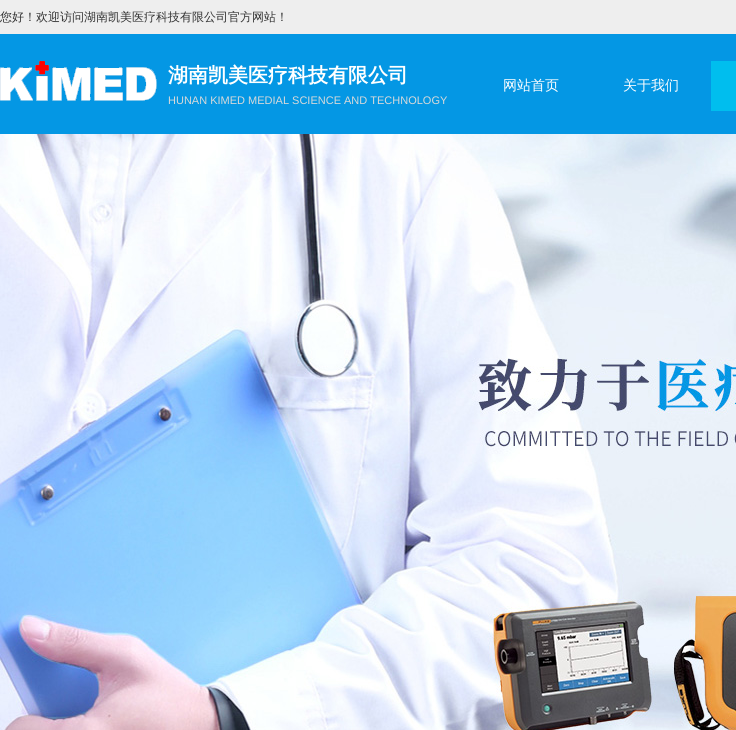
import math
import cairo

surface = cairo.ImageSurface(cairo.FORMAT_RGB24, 736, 730)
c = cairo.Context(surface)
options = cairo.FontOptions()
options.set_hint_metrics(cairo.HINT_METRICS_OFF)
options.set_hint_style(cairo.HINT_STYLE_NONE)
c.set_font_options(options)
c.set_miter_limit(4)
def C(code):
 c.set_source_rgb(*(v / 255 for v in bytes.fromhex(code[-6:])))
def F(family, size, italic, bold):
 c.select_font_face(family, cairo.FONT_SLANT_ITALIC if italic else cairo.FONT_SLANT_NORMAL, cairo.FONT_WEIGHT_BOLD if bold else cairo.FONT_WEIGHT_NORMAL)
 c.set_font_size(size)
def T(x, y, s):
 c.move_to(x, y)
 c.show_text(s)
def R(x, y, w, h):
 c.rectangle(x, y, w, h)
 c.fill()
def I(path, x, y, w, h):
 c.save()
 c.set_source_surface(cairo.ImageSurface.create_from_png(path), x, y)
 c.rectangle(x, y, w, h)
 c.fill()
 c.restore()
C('0497e4')
c.paint()
C('eeeeee')
R(0,0,736,34)
F('WenQuanYi Zen Hei Medium',12,0,0)
C('333333')
T(0,21,'您好！欢迎访问湖南凯美医疗科技有限公司官方网站！')
I('1.png',0,61,157,40)
F('WenQuanYi Zen Hei',20,0,1)
C('ffffff')
T(168,82,'湖南凯美医疗科技有限公司')
F('Liberation Sans',11,0,0)
C('d9d9d9')
T(168,104,'HUNAN KIMED MEDIAL SCIENCE AND TECHNOLOGY')
F('WenQuanYi Zen Hei Medium',14,0,0)
C('ffffff')
T(503,90,'网站首页')
T(623,90,'关于我们')
C('00beee')
R(711,61,25,50)
I('2.png',0,134,736,596)
surface.write_to_png('o.png')
